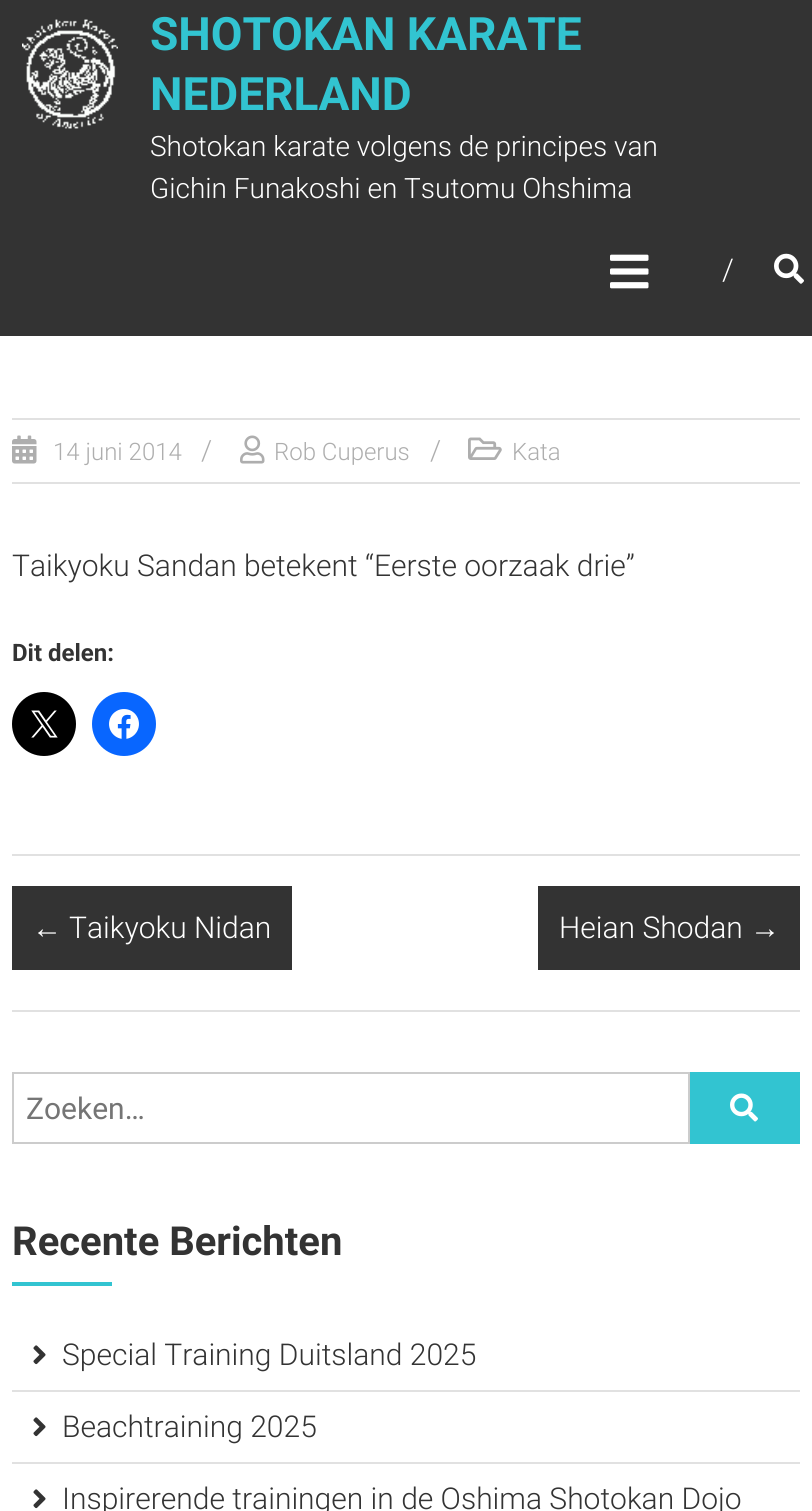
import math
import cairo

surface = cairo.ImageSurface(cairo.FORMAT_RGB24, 812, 1511)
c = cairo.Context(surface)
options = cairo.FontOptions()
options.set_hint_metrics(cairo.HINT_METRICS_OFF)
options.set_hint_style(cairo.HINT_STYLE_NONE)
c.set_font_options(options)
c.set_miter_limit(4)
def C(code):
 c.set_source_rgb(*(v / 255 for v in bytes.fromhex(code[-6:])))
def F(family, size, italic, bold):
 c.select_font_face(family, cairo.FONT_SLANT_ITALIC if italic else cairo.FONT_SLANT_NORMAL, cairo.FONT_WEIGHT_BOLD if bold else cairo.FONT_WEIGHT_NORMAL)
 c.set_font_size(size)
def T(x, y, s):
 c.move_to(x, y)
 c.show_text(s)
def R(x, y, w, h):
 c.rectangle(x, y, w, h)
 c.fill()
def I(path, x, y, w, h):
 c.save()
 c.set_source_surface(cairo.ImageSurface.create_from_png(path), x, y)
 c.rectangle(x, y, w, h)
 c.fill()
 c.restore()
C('ffffff')
c.paint()
C('333333')
R(0,0,812,336)
I('1.png',22,19,96,110)
F('Roboto',46,0,1)
C('32c4d1')
T(150,50,'SHOTOKAN KARATE')
T(150,110,'NEDERLAND')
F('Roboto Light',28,0,0)
C('ffffff')
T(150,156,'Shotokan karate volgens de principes van')
T(150,198,'Gichin Funakoshi en Tsutomu Ohshima')
I('2.png',610,254,39,35)
F('Roboto Light',30,0,0)
T(722,280,'/')
I('3.png',774,253,30,31)
C('e1e1e1')
R(12,854,788,2)
R(12,418,788,2)
R(12,482,788,2)
I('4.png',12,435,25,29)
F('Roboto Light',24,0,0)
C('aeaeae')
T(53,460,'14 juni 2014')
F('Roboto Light',28,0,0)
T(201,460,'/')
I('5.png',240,435,25,29)
F('Roboto Light',24,0,0)
T(274,460,'Rob Cuperus')
F('Roboto Light',28,0,0)
T(430,460,'/')
I('6.png',468,437,34,23)
F('Roboto Light',24,0,0)
T(512,460,'Kata')
F('Roboto Light',30,0,0)
C('333333')
T(12,576,'Taikyoku Sandan betekent “Eerste oorzaak drie”')
F('Roboto',24,0,1)
T(12,661,'Dit delen:')
C('000000')
c.new_path()
c.arc(44,724,32,0,2 * math.pi)
c.fill()
I('7.png',31,710,27,28)
C('0866ff')
c.arc(124,724,32,0,2 * math.pi)
c.fill()
I('8.png',109,709,30,30)
C('e1e1e1')
R(12,1010,788,2)
C('333333')
R(12,886,280,84)
F('Liberation Sans',30,0,0)
C('ffffff')
T(32,938,'←')
F('Roboto Light',30,0,0)
T(69,938,'Taikyoku Nidan')
C('333333')
R(538,886,262,84)
C('ffffff')
T(559,938,'Heian Shodan')
F('Liberation Sans',30,0,0)
T(750,938,'→')
c.rectangle(13,1073,676,70)
C('cccccc')
c.stroke()
F('Roboto',30,0,0)
C('757575')
T(26,1119,'Zoeken…')
C('32c4d1')
R(690,1072,110,72)
I('9.png',730,1093,28,29)
F('Roboto',40,0,1)
C('333333')
T(12,1255,'Recente Berichten')
C('32c4d1')
R(12,1282,100,4)
C('e1e1e1')
R(12,1390,788,2)
I('10.png',33,1345,13,20)
F('Roboto Light',30,0,0)
C('333333')
T(62,1365,'Special Training Duitsland 2025')
C('e1e1e1')
R(12,1462,788,2)
I('10.png',33,1417,13,20)
C('333333')
T(62,1437,'Beachtraining 2025')
I('10.png',33,1489,13,20)
T(62,1509,'Inspirerende trainingen in de Oshima Shotokan Dojo')
surface.write_to_png('o.png')
